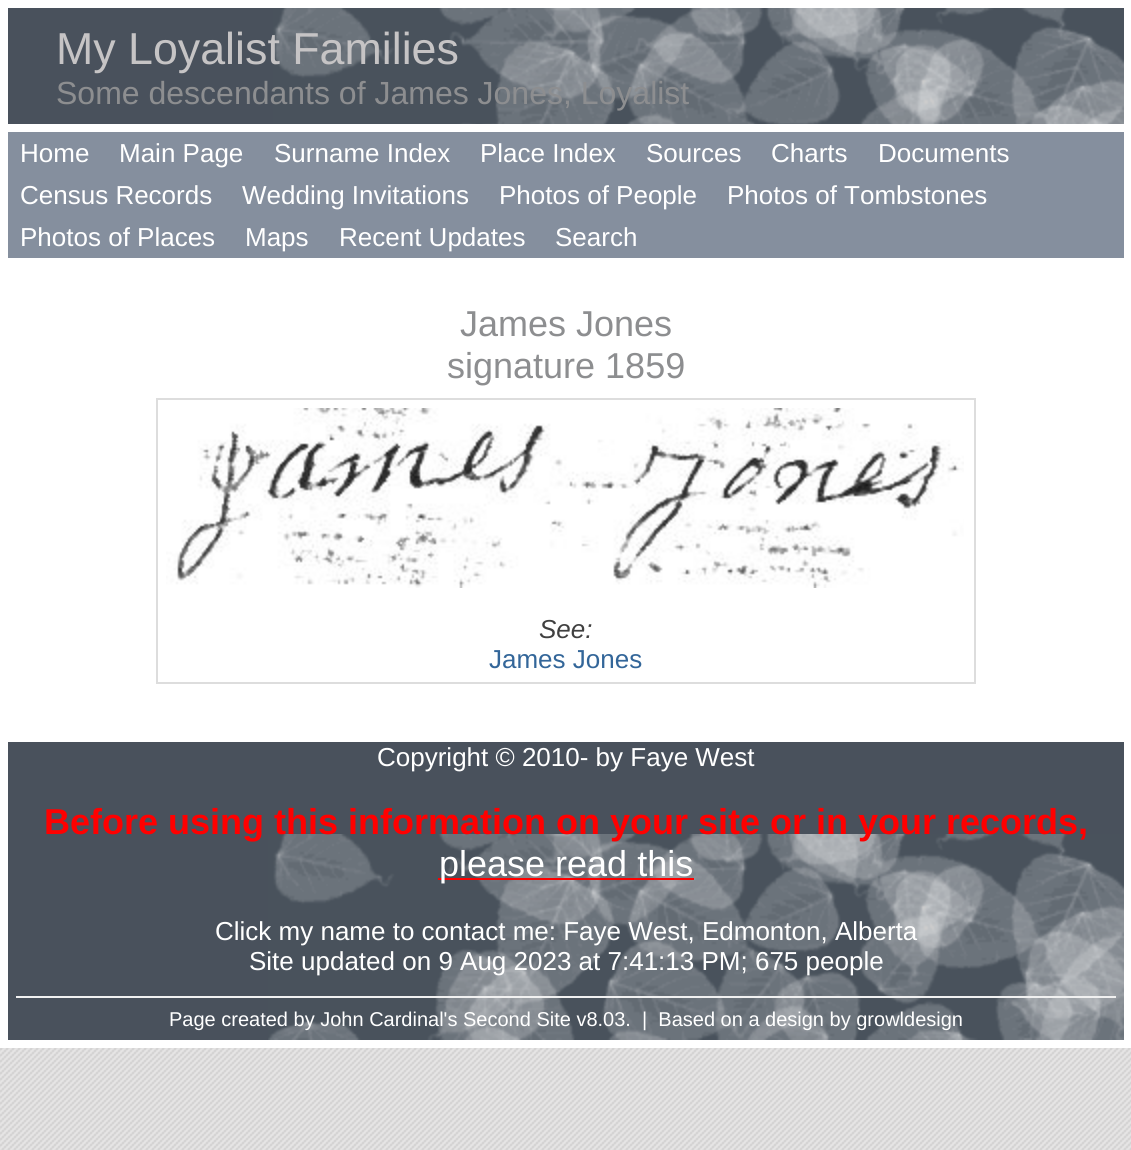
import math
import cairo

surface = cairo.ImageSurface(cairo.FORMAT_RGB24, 1131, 1150)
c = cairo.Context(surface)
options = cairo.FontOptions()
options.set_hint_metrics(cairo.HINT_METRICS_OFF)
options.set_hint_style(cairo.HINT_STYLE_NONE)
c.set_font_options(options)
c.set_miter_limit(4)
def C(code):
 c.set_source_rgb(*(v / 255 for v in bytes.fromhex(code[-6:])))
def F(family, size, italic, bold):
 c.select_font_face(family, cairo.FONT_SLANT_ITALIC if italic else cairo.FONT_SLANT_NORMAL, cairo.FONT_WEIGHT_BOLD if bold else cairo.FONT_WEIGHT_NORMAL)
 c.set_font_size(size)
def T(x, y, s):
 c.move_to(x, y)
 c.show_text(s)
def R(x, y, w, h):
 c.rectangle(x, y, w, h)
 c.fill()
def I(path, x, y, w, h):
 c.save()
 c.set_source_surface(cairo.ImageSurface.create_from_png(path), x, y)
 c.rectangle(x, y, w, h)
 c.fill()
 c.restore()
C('ffffff')
c.paint()
I('1.png',0,1048,1131,102)
C('49515c')
R(8,8,265,116)
I('2.png',273,8,851,116)
F('Liberation Sans',44.75,0,0)
C('c6c4c5')
T(56,64,'My Loyalist Families')
F('Liberation Sans',32,0,0)
C('8d8e90')
T(56,104,'Some descendants of James Jones, Loyalist')
C('858f9e')
R(8,132,1116,126)
F('Liberation Sans',26,0,0)
C('ffffff')
T(20,162,'Home')
T(119,162,'Main Page')
T(274,162,'Surname Index')
T(480,162,'Place Index')
T(646,162,'Sources')
T(771,162,'Charts')
T(878,162,'Documents')
T(20,204,'Census Records')
T(242,204,'Wedding Invitations')
T(499,204,'Photos of People')
T(727,204,'Photos of Tombstones')
T(20,246,'Photos of Places')
T(245,246,'Maps')
T(339,246,'Recent Updates')
T(555,246,'Search')
F('Liberation Sans',36,0,0)
C('8d8e90')
T(460,336,'James Jones')
T(447,378,'signature 1859')
c.rectangle(157,399,818,284)
C('dddddd')
c.stroke()
I('3.png',166,408,798,180)
F('Liberation Sans',26,1,0)
C('404040')
T(539,638,'See:')
F('Liberation Sans',26,0,0)
C('336699')
T(489,668,'James Jones')
C('49515c')
R(8,742,1116,298)
I('4.png',268,834,856,206)
C('ffffff')
T(377,766,'Copyright © 2010- by Faye West')
F('Liberation Sans',36,0,1)
C('ff0000')
T(44,834,'Before using this information on your site or in your records,')
R(438,878,256,2)
F('Liberation Sans',36,0,0)
C('ffffff')
T(439,876,'please read this')
F('Liberation Sans',26,0,0)
T(215,940,'Click my name to contact me: Faye West, Edmonton, Alberta')
T(249,970,'Site updated on 9 Aug 2023 at 7:41:13 PM; 675 people')
C('f1f1f1')
R(16,996,1100,2)
F('Liberation Sans',20,0,0)
C('ffffff')
T(169,1026,'Page created by John Cardinal\'s Second Site v8.03.  |  Based on a design by growldesign')
surface.write_to_png('o.png')
